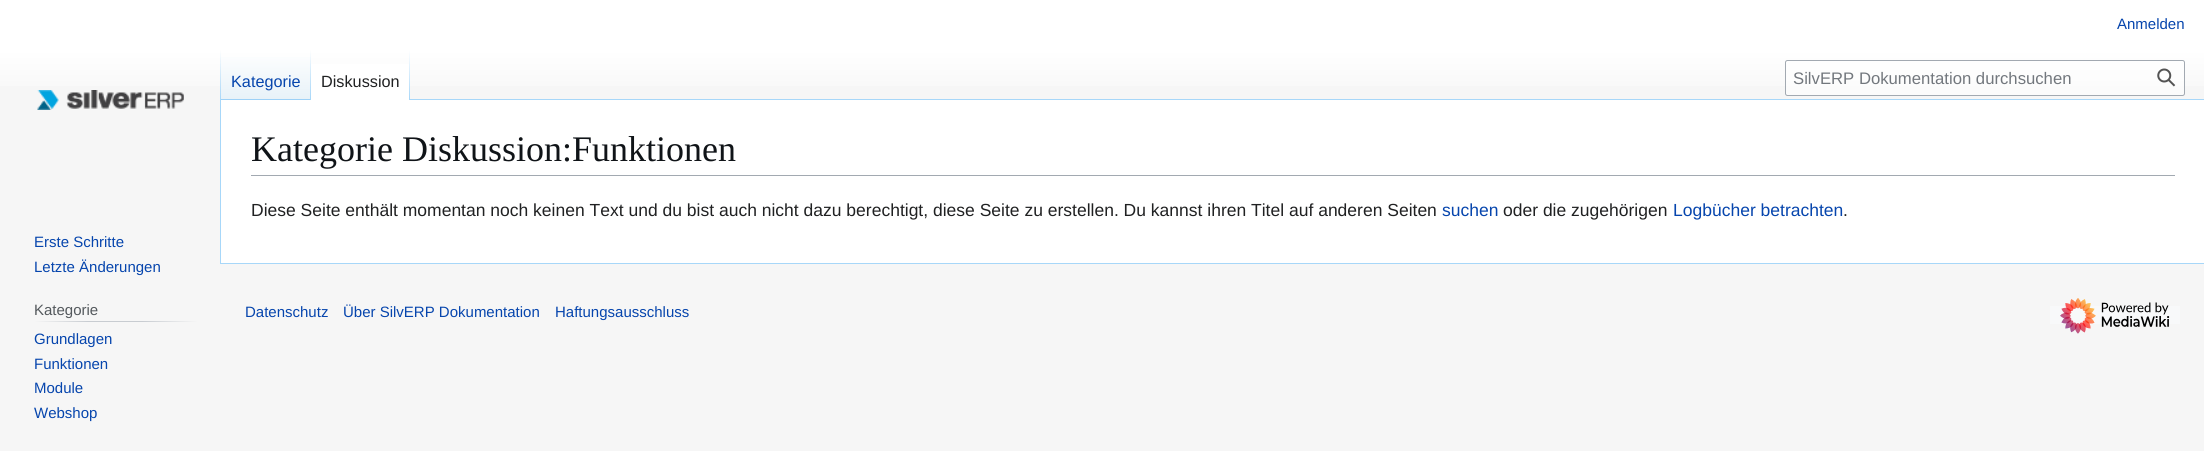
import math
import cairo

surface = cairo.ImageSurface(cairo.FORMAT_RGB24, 2204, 451)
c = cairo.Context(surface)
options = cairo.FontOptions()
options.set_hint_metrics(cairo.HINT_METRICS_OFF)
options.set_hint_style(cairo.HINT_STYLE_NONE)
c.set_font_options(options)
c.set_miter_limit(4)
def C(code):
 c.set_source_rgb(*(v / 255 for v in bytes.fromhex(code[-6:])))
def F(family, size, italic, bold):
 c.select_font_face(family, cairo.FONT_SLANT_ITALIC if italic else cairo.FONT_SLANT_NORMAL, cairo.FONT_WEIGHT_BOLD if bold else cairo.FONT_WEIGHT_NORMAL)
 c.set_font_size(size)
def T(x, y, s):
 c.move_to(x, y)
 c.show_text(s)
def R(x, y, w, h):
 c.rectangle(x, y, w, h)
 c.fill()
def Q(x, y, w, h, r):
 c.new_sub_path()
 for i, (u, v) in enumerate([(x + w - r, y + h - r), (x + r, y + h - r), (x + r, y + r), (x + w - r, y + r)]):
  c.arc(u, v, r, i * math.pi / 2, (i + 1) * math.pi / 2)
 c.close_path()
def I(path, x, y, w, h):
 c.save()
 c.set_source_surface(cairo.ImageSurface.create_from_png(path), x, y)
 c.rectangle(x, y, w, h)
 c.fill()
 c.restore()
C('f6f6f6')
c.paint()
gradient = cairo.LinearGradient(1103,0,1103,100)
gradient.add_color_stop_rgba(.5,1,1,1,1)
gradient.add_color_stop_rgba(1,0.965,0.965,0.965,1)
c.set_source(gradient)
R(0,0,2204,86)
F('Liberation Sans',15,0,0)
C('0645ad')
T(2117,29,'Anmelden')
C('a7d7f9')
R(220,263,1984,1)
R(220,99,1,165)
gradient = cairo.LinearGradient(221,50,221,100)
gradient.add_color_stop_rgba(0,0.655,0.843,0.976,0)
gradient.add_color_stop_rgba(1,0.655,0.843,0.976,1)
c.set_source(gradient)
R(220,50,1,50)
gradient = cairo.LinearGradient(266,100,266,50)
gradient.add_color_stop_rgba(0,0.467,0.757,0.965,1)
gradient.add_color_stop_rgba(.03,0.91,0.949,0.973,1)
gradient.add_color_stop_rgba(1,1,1,1,1)
c.set_source(gradient)
R(221,57,90,43)
gradient = cairo.LinearGradient(311,50,311,100)
gradient.add_color_stop_rgba(0,0.655,0.843,0.976,0)
gradient.add_color_stop_rgba(1,0.655,0.843,0.976,1)
c.set_source(gradient)
R(310,50,1,50)
F('Liberation Sans',16.25,0,0)
C('0645ad')
T(231,87,'Kategorie')
C('ffffff')
R(311,64,98,36)
gradient = cairo.LinearGradient(409,50,409,100)
gradient.add_color_stop_rgba(0,1,1,1,1)
gradient.add_color_stop_rgba(1,0.655,0.843,0.976,1)
c.set_source(gradient)
R(409,50,1,50)
C('202122')
T(321,87,'Diskussion')
c.set_source_rgba(1,1,1,0.5)
Q(1785.5,60.5,399,35,2)
c.fill_preserve()
C('a2a9b1')
c.set_line_width(1)
c.stroke()
F('Liberation Sans',16.7,0,0)
C('72777d')
T(1793,84,'SilvERP Dokumentation durchsuchen')
I('1.png',2157,68,19,19)
I('2.png',37,90,147,20)
F('Liberation Sans',15,0,0)
C('0645ad')
T(34,247,'Erste Schritte')
T(34,272,'Letzte Änderungen')
gradient = cairo.LinearGradient(34,322,198,322)
gradient.add_color_stop_rgba(0,0.965,0.965,0.965,1)
gradient.add_color_stop_rgba(.33,0.784,0.8,0.82,1)
gradient.add_color_stop_rgba(.66,0.784,0.8,0.82,1)
gradient.add_color_stop_rgba(1,0.965,0.965,0.965,1)
c.set_source(gradient)
R(34,321,164,1)
C('54595d')
T(34,315,'Kategorie')
C('0645ad')
T(34,344,'Grundlagen')
T(34,369,'Funktionen')
T(34,393,'Module')
T(34,418,'Webshop')
C('ffffff')
R(221,100,1983,163)
C('a7d7f9')
R(410,99,1794,1)
C('a2a9b1')
R(251,175,1924,1)
F('Liberation Serif',36,0,0)
C('101418')
T(251,161,'Kategorie Diskussion:Funktionen')
F('Liberation Sans',17.5,0,0)
C('202122')
T(251,216,'Diese Seite enthält momentan noch keinen Text und du bist auch nicht dazu berechtigt, diese Seite zu erstellen. Du kannst ihren Titel auf anderen Seiten')
C('0645ad')
T(1442,216,'suchen')
C('202122')
T(1503,216,'oder die zugehörigen')
C('0645ad')
T(1673,216,'Logbücher betrachten')
C('202122')
T(1843,216,'.')
F('Liberation Sans',15,0,0)
C('0645ad')
T(245,317,'Datenschutz')
T(343,317,'Über SilvERP Dokumentation')
T(555,317,'Haftungsausschluss')
C('f8f9fa')
R(2050,306,130,18)
I('3.png',2060,298,110,36)
surface.write_to_png('o.png')
